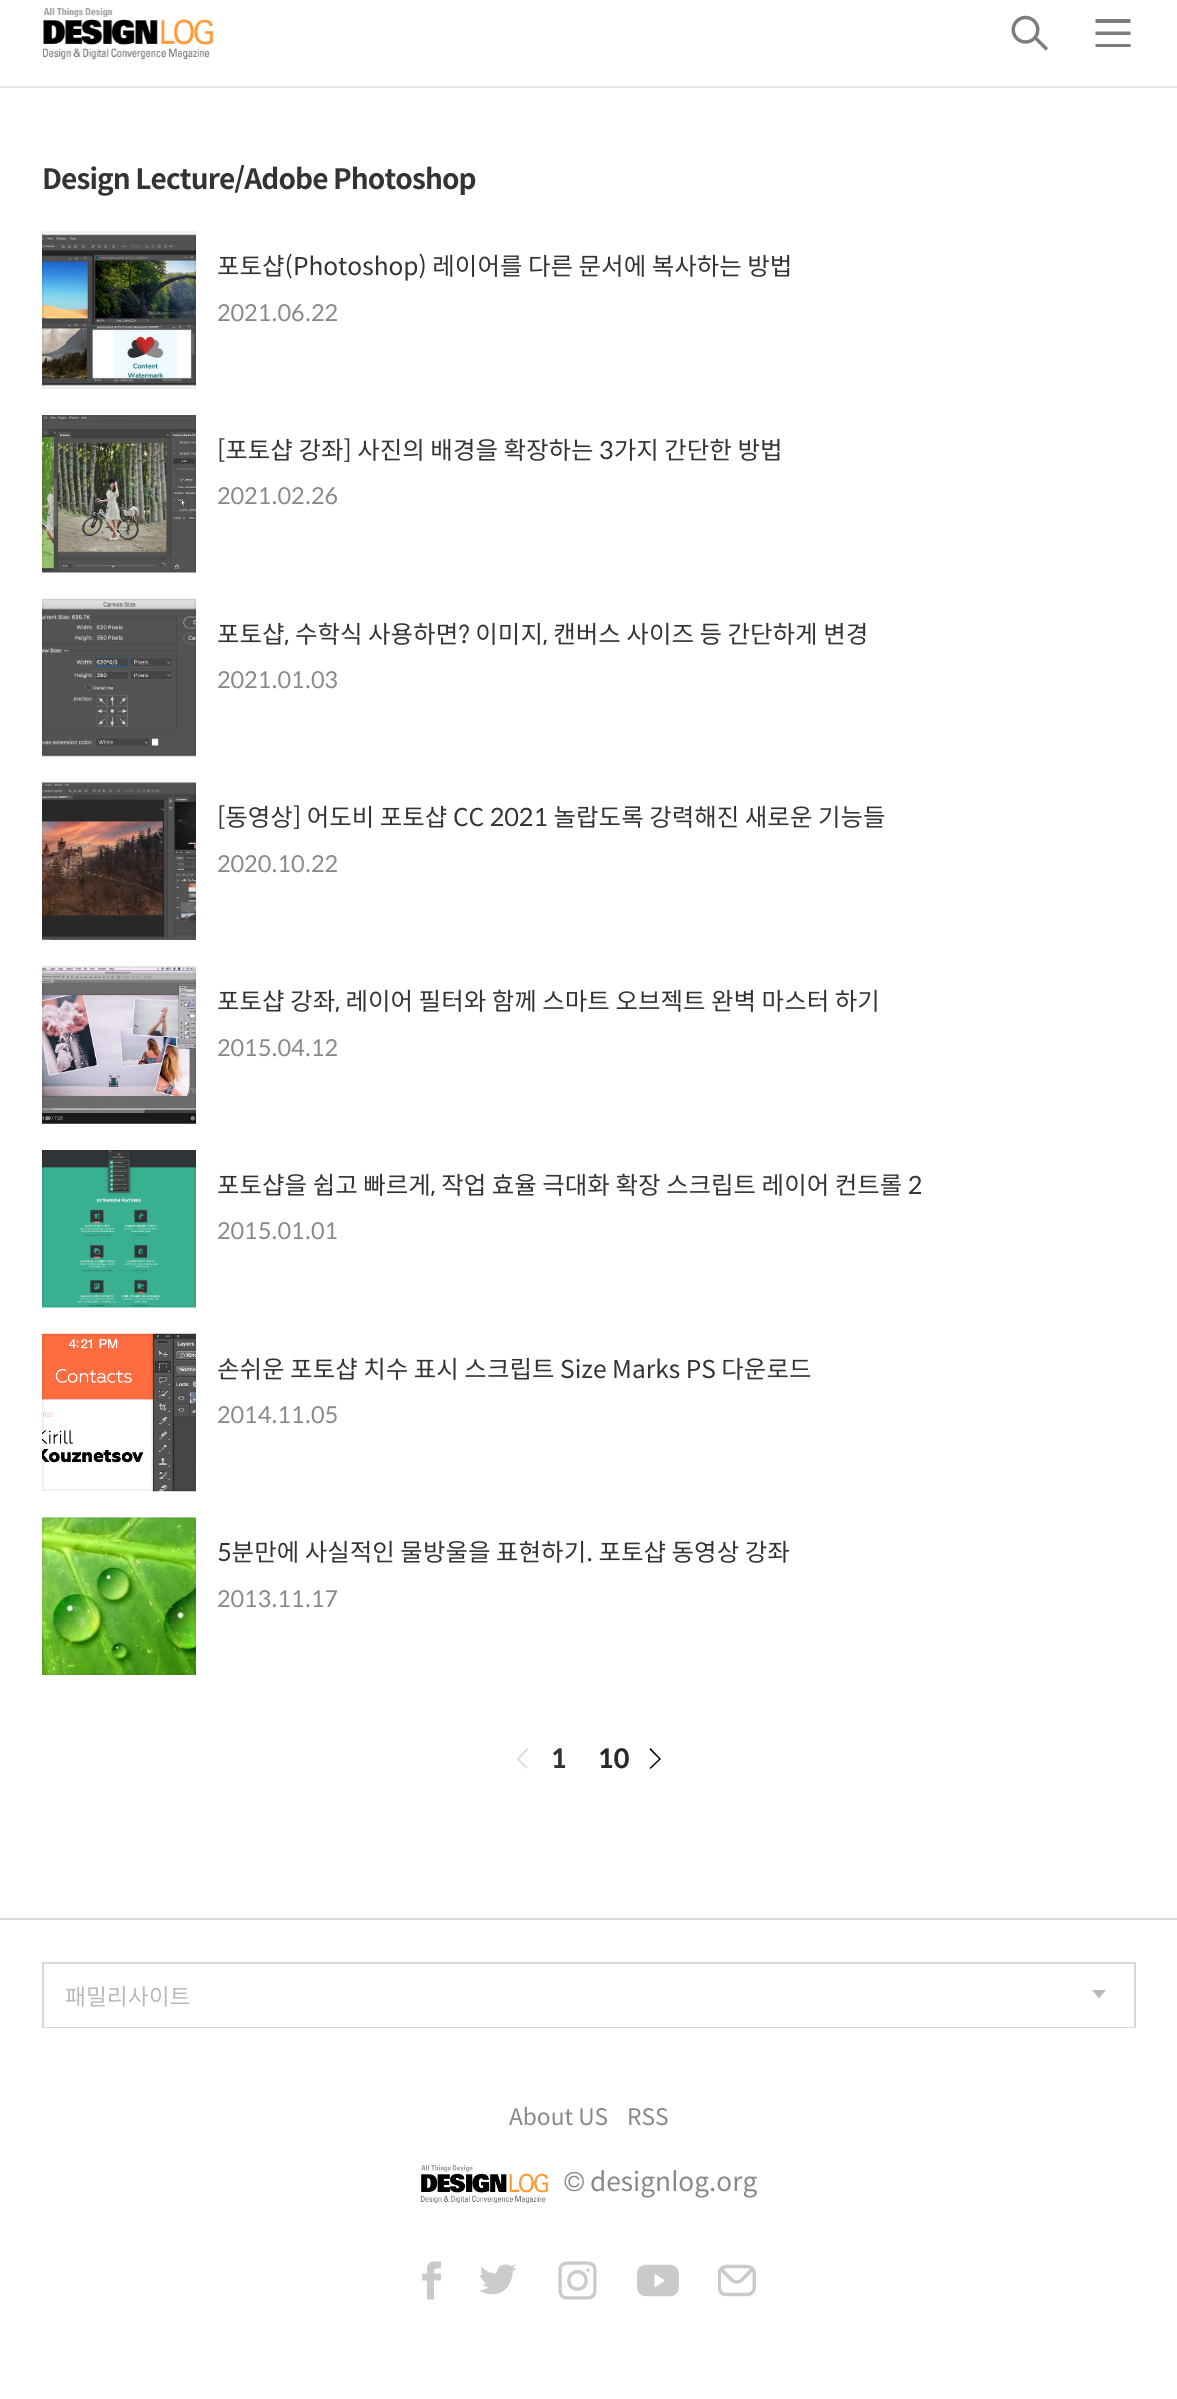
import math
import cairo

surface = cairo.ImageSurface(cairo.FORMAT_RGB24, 1177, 2399)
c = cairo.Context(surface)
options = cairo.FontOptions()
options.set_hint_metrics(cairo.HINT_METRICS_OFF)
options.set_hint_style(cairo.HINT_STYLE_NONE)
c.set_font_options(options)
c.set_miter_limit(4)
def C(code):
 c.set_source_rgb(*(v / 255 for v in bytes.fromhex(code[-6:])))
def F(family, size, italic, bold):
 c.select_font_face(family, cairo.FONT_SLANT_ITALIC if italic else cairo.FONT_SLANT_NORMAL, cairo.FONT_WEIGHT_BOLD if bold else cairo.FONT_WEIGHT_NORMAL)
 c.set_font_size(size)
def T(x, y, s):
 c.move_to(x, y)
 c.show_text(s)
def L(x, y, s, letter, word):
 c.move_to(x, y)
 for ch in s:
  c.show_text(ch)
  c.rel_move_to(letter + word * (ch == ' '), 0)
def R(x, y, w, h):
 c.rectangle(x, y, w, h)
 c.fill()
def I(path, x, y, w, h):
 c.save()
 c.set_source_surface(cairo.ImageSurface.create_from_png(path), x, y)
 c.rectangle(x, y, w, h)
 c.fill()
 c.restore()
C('ffffff')
c.paint()
C('e6e6e6')
c.new_path()
c.move_to(0,86)
c.line_to(0,88)
c.line_to(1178,88)
c.line_to(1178,-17)
c.line_to(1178,86)
c.close_path()
c.fill()
I('1.png',42,8,172,52)
I('2.png',1011,15,37,36)
C('7d7d7d')
c.set_fill_rule(cairo.FILL_RULE_EVEN_ODD)
c.new_path()
c.move_to(1095.5,19)
c.line_to(1130.5,19)
c.line_to(1130.5,23)
c.line_to(1095.5,23)
c.close_path()
c.move_to(1095.5,31.5)
c.line_to(1130.5,31.5)
c.line_to(1130.5,35)
c.line_to(1095.5,35)
c.close_path()
c.move_to(1095.5,44)
c.line_to(1130.5,44)
c.line_to(1130.5,47)
c.line_to(1095.5,47)
c.close_path()
c.fill()
F('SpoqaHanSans',28,0,1)
C('333333')
L(42,189,'Design Lecture/Adobe Photoshop',-.9,0)
I('3.png',42,234,154,152)
c.rectangle(43,232,152,156)
c.set_source_rgba(0,0,0,0.06)
c.stroke()
F('SpoqaHanSans',24.5,0,0)
C('333333')
T(217,275,'포토샵(Photoshop) 레이어를 다른 문서에 복사하는 방법')
F('SpoqaHanSans',22.75,0,0)
C('888888')
T(217,321,'2021.06.22')
I('4.png',42,415,154,158)
c.rectangle(43,416,152,155)
c.set_source_rgba(0,0,0,0.06)
c.stroke()
F('SpoqaHanSans',24.5,0,0)
C('333333')
T(217,459,'[포토샵 강좌] 사진의 배경을 확장하는 3가지 간단한 방법')
F('SpoqaHanSans',22.75,0,0)
C('888888')
T(217,504,'2021.02.26')
I('5.png',42,598,154,159)
c.rectangle(43,600,152,155)
c.set_source_rgba(0,0,0,0.06)
c.stroke()
F('SpoqaHanSans',24.5,0,0)
C('333333')
T(217,643,'포토샵, 수학식 사용하면? 이미지, 캔버스 사이즈 등 간단하게 변경')
F('SpoqaHanSans',22.75,0,0)
C('888888')
T(217,688,'2021.01.03')
I('6.png',42,782,154,158)
c.rectangle(43,783,152,156)
c.set_source_rgba(0,0,0,0.06)
c.stroke()
F('SpoqaHanSans',24.5,0,0)
C('333333')
T(217,826,'[동영상] 어도비 포토샵 CC 2021 놀랍도록 강력해진 새로운 기능들')
F('SpoqaHanSans',22.75,0,0)
C('888888')
T(217,872,'2020.10.22')
I('7.png',42,966,154,158)
c.rectangle(43,967,152,156)
c.set_source_rgba(0,0,0,0.06)
c.stroke()
F('SpoqaHanSans',24.5,0,0)
C('333333')
T(217,1010,'포토샵 강좌, 레이어 필터와 함께 스마트 오브젝트 완벽 마스터 하기')
F('SpoqaHanSans',22.75,0,0)
C('888888')
T(217,1056,'2015.04.12')
I('8.png',42,1150,154,158)
c.rectangle(43,1151,152,155)
c.set_source_rgba(0,0,0,0.06)
c.stroke()
F('SpoqaHanSans',24.5,0,0)
C('333333')
T(217,1194,'포토샵을 쉽고 빠르게, 작업 효율 극대화 확장 스크립트 레이어 컨트롤 2')
F('SpoqaHanSans',22.75,0,0)
C('888888')
T(217,1239,'2015.01.01')
I('9.png',42,1333,154,159)
c.rectangle(43,1335,152,155)
c.set_source_rgba(0,0,0,0.06)
c.stroke()
F('SpoqaHanSans',24.5,0,0)
C('333333')
T(217,1378,'손쉬운 포토샵 치수 표시 스크립트 Size Marks PS 다운로드')
F('SpoqaHanSans',22.75,0,0)
C('888888')
T(217,1423,'2014.11.05')
I('10.png',42,1517,154,158)
c.rectangle(43,1518,152,156)
c.set_source_rgba(0,0,0,0.06)
c.stroke()
F('SpoqaHanSans',24.5,0,0)
C('333333')
T(217,1561,'5분만에 사실적인 물방울을 표현하기. 포토샵 동영상 강좌')
F('SpoqaHanSans',22.75,0,0)
C('888888')
T(217,1607,'2013.11.17')
C('d9d9d9')
c.set_fill_rule(cairo.FILL_RULE_WINDING)
c.new_path()
c.move_to(527,1769)
c.line_to(528,1768)
c.line_to(519,1759)
c.line_to(528,1749.5)
c.line_to(527,1748)
c.line_to(516.5,1759)
c.fill()
F('SpoqaHanSans',26.25,0,1)
C('333333')
T(551,1768,'1')
C('292929')
T(598,1768,'10')
C('000000')
c.new_path()
c.move_to(650.5,1748)
c.line_to(649.5,1749.5)
c.line_to(659,1759)
c.line_to(649.5,1768)
c.line_to(650.5,1769)
c.line_to(661,1759)
c.fill()
C('d9d9d9')
R(0,1918,1177,2)
c.rectangle(43,1963,1092,64)
c.stroke()
C('ffffff')
R(44,2026,1090,1)
F('SpoqaHanSans',22.75,0,0)
C('b9b9b9')
T(65,2005,'패밀리사이트')
c.new_path()
c.move_to(1092,1990)
c.line_to(1106,1990)
c.line_to(1099,1998.5)
c.close_path()
c.fill()
C('888888')
T(509,2125,'About US')
T(627,2125,'RSS')
I('11.png',420,2165,128,39)
F('Dotum',26.25,0,0)
T(564,2191,'©')
F('SpoqaHanSans',26.25,0,0)
T(590,2191,'designlog.org')
I('12.png',422,2261,19,39)
I('13.png',480,2264,36,31)
I('14.png',558,2261,39,39)
I('15.png',637,2264,42,33)
I('16.png',718,2264,38,33)
surface.write_to_png('o.png')
